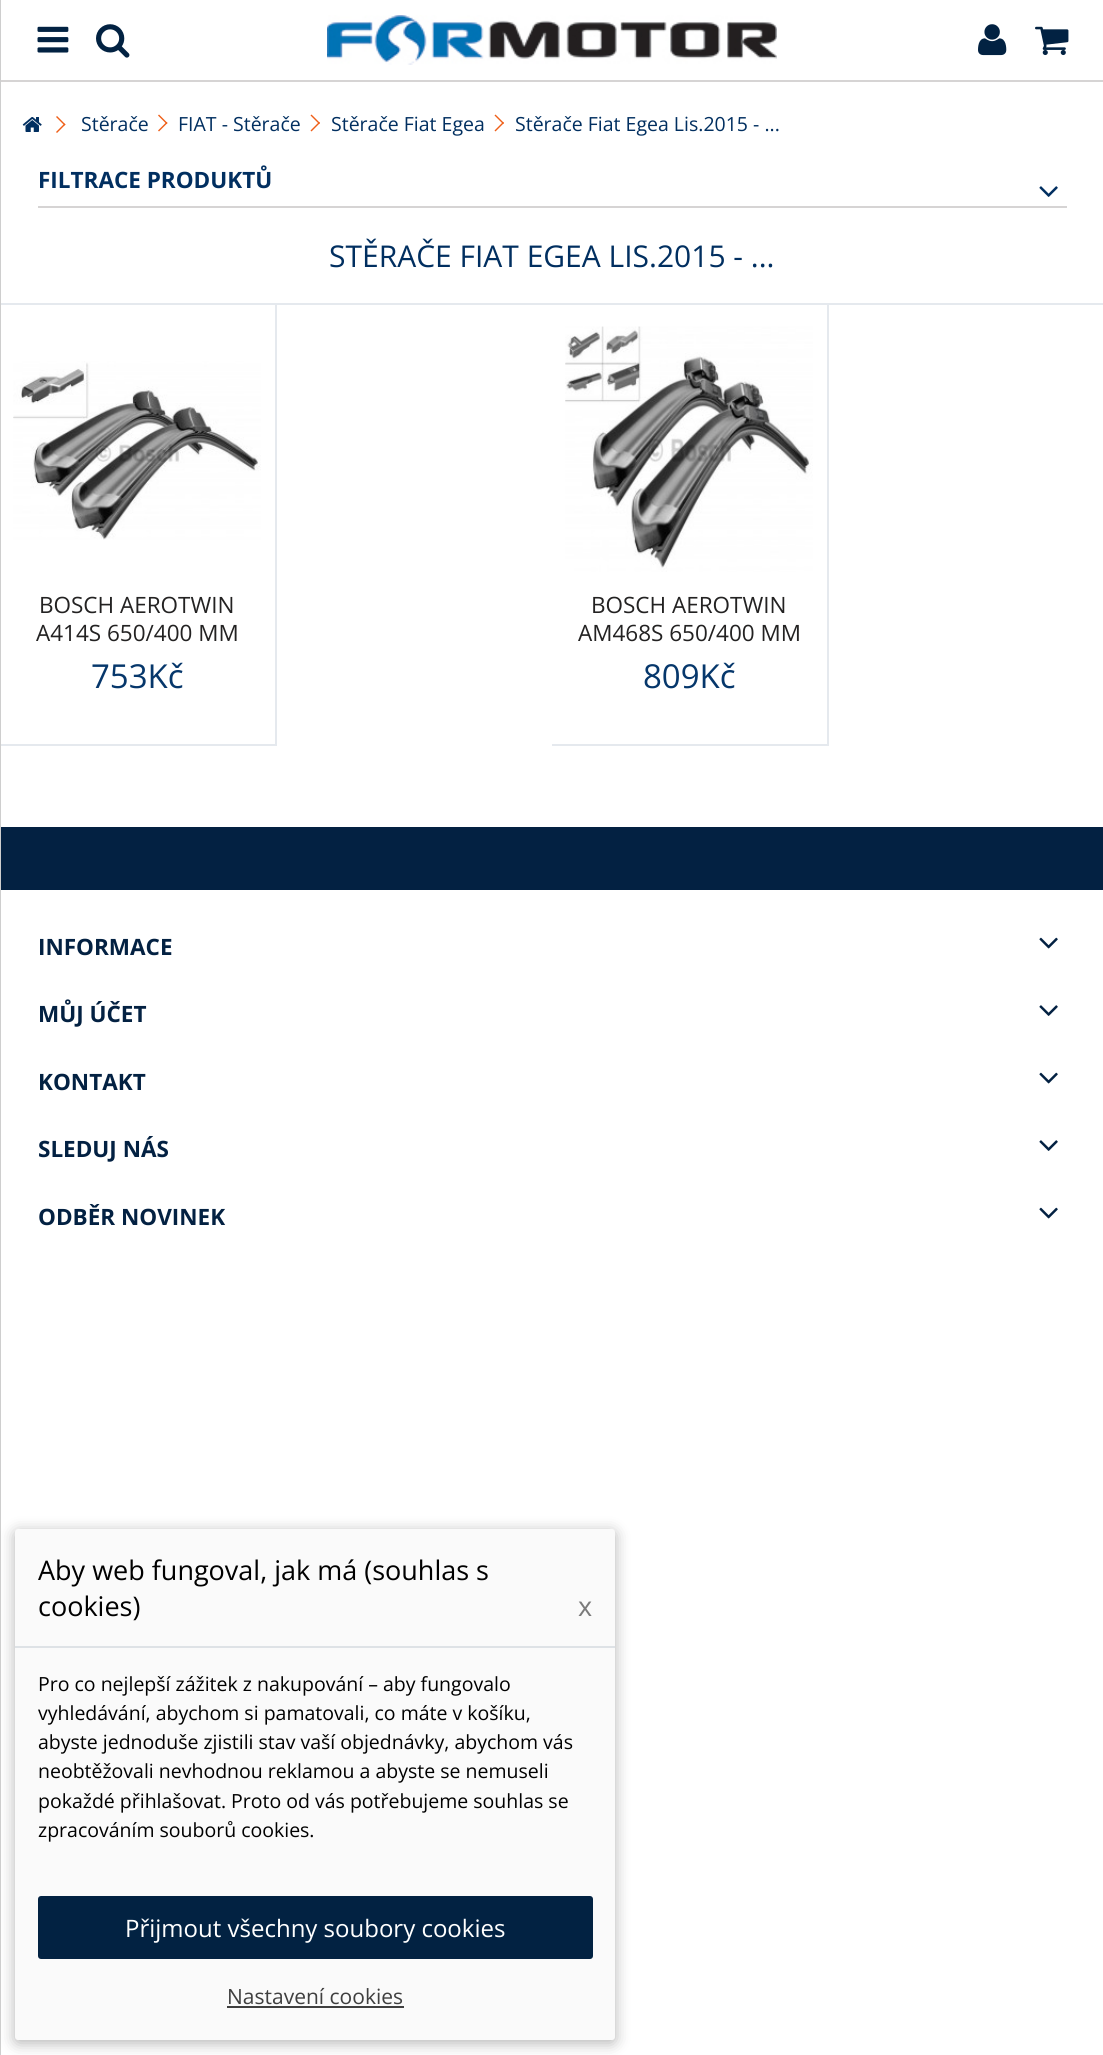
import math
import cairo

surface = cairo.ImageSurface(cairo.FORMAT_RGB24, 1103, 2055)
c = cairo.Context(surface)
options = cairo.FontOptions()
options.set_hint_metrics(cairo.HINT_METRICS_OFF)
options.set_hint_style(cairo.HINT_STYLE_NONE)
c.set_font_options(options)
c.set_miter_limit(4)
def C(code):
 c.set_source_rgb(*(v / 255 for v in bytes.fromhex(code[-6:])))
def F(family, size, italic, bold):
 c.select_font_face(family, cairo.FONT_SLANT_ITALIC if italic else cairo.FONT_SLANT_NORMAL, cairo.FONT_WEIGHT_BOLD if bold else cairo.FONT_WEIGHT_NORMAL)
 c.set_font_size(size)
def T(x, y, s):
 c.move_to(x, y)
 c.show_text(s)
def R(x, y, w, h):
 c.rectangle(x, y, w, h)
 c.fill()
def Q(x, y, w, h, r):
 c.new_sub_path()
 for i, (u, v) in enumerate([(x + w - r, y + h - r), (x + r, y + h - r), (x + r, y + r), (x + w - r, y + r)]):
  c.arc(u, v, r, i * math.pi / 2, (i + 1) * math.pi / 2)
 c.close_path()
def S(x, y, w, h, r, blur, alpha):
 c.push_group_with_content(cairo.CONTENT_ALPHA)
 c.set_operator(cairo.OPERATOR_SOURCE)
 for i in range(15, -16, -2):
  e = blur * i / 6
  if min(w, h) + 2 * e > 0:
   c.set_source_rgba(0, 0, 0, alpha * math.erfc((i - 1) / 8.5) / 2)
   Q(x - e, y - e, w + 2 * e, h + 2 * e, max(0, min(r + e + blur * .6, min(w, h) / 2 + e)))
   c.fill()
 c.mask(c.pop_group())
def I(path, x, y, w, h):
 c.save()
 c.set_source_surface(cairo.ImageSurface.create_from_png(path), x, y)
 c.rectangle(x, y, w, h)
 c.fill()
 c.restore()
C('ffffff')
c.paint()
C('d6d4d4')
R(0,80,1103,2)
C('e5e9ee')
R(0,303,1103,2)
R(275,305,2,441)
R(0,744,276,2)
C('032142')
R(0,827,1103,1)
C('cecece')
R(0,0,1,2055)
I('1.png',37,26,32,27)
I('2.png',96,24,34,34)
I('3.png',327,15,450,50)
I('4.png',978,24,29,32)
I('5.png',1035,26,34,30)
I('6.png',22,117,20,15)
C('ef5f18')
c.new_path()
c.move_to(57,116)
c.line_to(65.5,124.5)
c.line_to(64.5,125.5)
c.line_to(56,117)
c.close_path()
c.fill()
c.new_path()
c.move_to(64.5,123.5)
c.line_to(65.5,124.5)
c.line_to(57,133)
c.line_to(56,132)
c.close_path()
c.fill()
F('Open Sans',19.5,0,0)
C('012f60')
T(81,131,'Stěrače')
C('ef5f18')
c.new_path()
c.move_to(159,114.5)
c.line_to(167.5,123)
c.line_to(166.5,124)
c.line_to(158,115.5)
c.close_path()
c.fill()
c.new_path()
c.move_to(166.5,122)
c.line_to(167.5,123)
c.line_to(159,131.5)
c.line_to(158,130.5)
c.close_path()
c.fill()
C('012f60')
T(178,131,'FIAT - Stěrače')
C('ef5f18')
c.new_path()
c.move_to(311.5,114.5)
c.line_to(320,123)
c.line_to(319,124)
c.line_to(310.5,115.5)
c.close_path()
c.fill()
c.new_path()
c.move_to(319,122)
c.line_to(320,123)
c.line_to(311.5,131.5)
c.line_to(310.5,130.5)
c.close_path()
c.fill()
C('012f60')
T(331,131,'Stěrače Fiat Egea')
C('ef5f18')
c.new_path()
c.move_to(495.5,114.5)
c.line_to(504,123)
c.line_to(503,124)
c.line_to(494.5,115.5)
c.close_path()
c.fill()
c.new_path()
c.move_to(503,122)
c.line_to(504,123)
c.line_to(495.5,131.5)
c.line_to(494.5,130.5)
c.close_path()
c.fill()
C('012f60')
T(515,131,'Stěrače Fiat Egea Lis.2015 - ...')
C('d6d4d4')
R(38,206,1029,2)
F('Open Sans',22.5,0,1)
C('012f60')
T(38,188,'FILTRACE PRODUKTŮ')
I('7.png',1039,186,19,11)
F('Open Sans',30,0,0)
T(329,267,'STĚRAČE FIAT EGEA LIS.2015 - ...')
I('8.png',13,361,248,179)
C('e2e2e2')
R(13,417,1,1)
F('Open Sans',22.5,0,0)
C('232222')
T(39,613,'BOSCH AEROTWIN')
T(36,641,'A414S 650/400 MM')
F('Open Sans',33,0,0)
C('06376b')
T(91,688,'753Kč')
C('e5e9ee')
R(827,305,2,441)
R(552,744,276,2)
I('9.png',565,326,248,246)
I('10.png',565,363,1,39)
F('Open Sans',22.5,0,0)
C('232222')
T(591,613,'BOSCH AEROTWIN')
T(578,641,'AM468S 650/400 MM')
F('Open Sans',33,0,0)
C('06376b')
T(643,688,'809Kč')
C('032142')
R(1,828,1102,62)
F('Open Sans',22.5,0,1)
T(38,955,'INFORMACE')
I('11.png',1039,937,19,12)
T(38,1022,'MŮJ ÚČET')
I('12.png',1039,1005,19,11)
T(38,1090,'KONTAKT')
I('11.png',1039,1072,19,12)
T(38,1157,'SLEDUJ NÁS')
I('12.png',1039,1140,19,11)
T(38,1225,'ODBĚR NOVINEK')
I('11.png',1039,1207,19,12)
C('000000')
S(15,1532,600,511,3,7.5,.3)
C('fafafa')
Q(15,1529,600,511,3)
c.fill()
C('dee2e6')
R(15,1646,600,2)
F('Open Sans',27,0,0)
C('000000')
T(38,1580,'Aby web fungoval, jak má (souhlas s')
T(38,1616,'cookies)')
C('7a7a7a')
T(578,1616,'x')
F('Open Sans',19.5,0,0)
C('000000')
T(38,1691,'Pro co nejlepší zážitek z nakupování – aby fungovalo')
T(38,1720,'vyhledávání, abychom si pamatovali, co máte v košíku,')
T(38,1749,'abyste jednoduše zjistili stav vaší objednávky, abychom vás')
T(38,1778,'neobtěžovali nevhodnou reklamou a abyste se nemuseli')
T(38,1808,'pokaždé přihlašovat. Proto od vás potřebujeme souhlas se')
T(38,1837,'zpracováním souborů cookies.')
C('022242')
Q(39,1897,553,61,2)
c.fill_preserve()
c.stroke()
F('Open Sans',24,0,0)
C('ffffff')
T(125,1937,'Přijmout všechny soubory cookies')
F('Open Sans',21,0,0)
C('3f3f3f')
T(227,2004,'Nastavení cookies')
R(227,2006,177,2)
surface.write_to_png('o.png')
